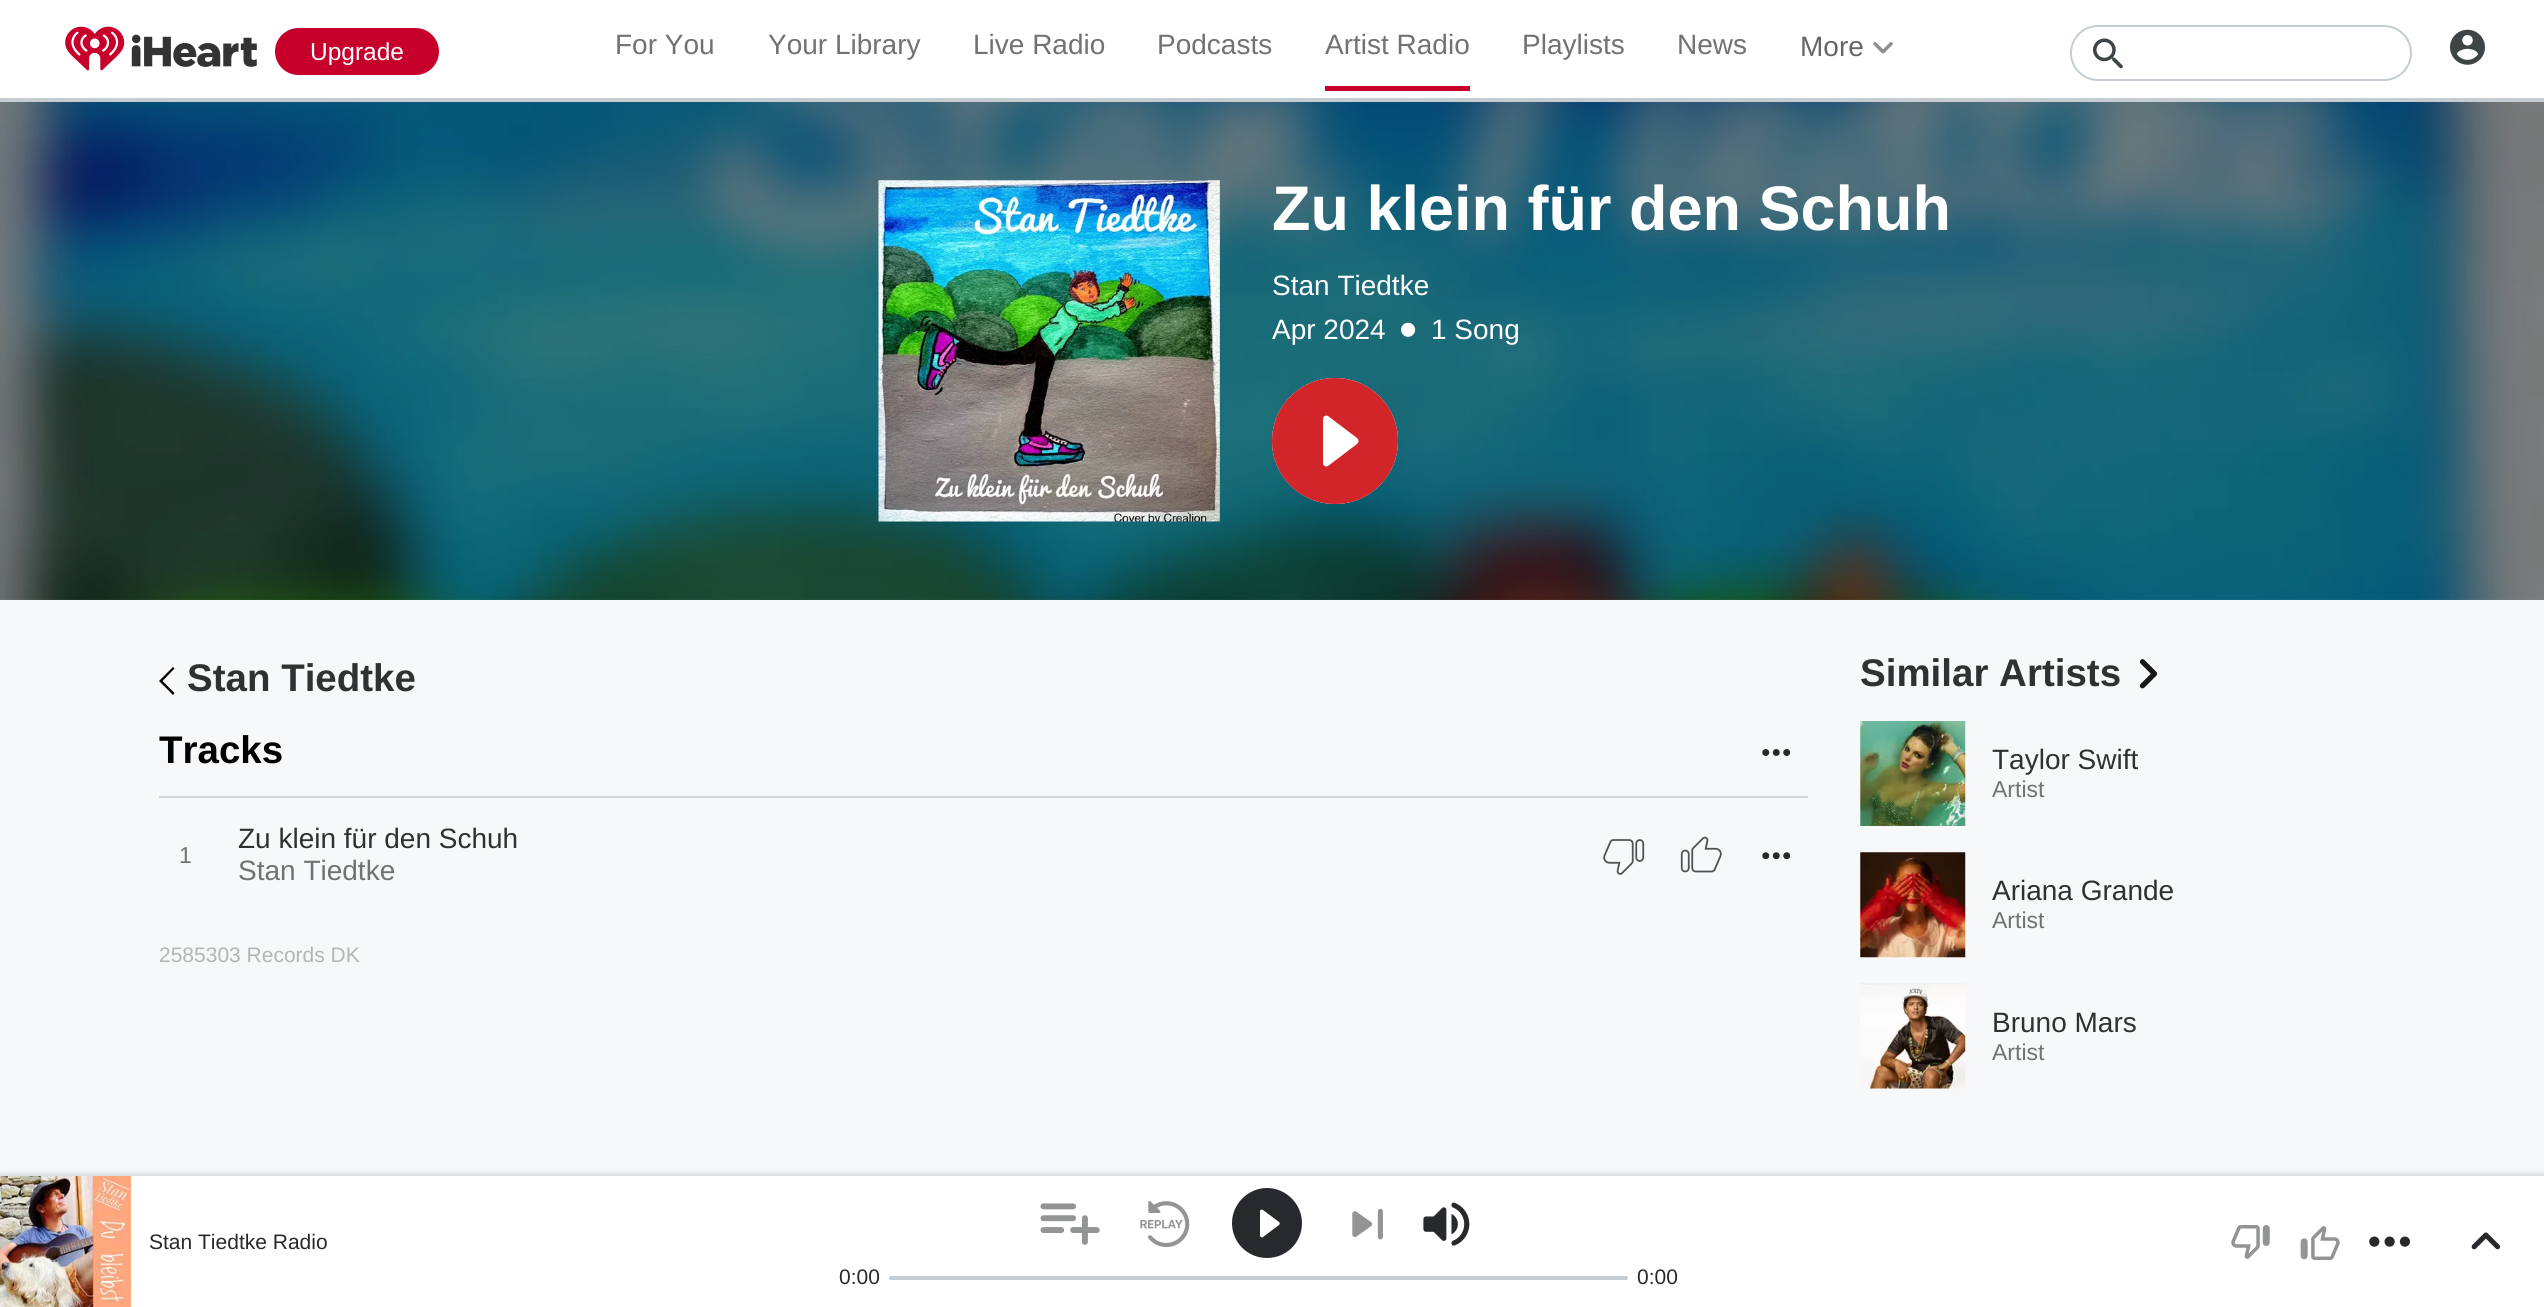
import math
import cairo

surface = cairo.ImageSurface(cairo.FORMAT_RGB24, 2544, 1307)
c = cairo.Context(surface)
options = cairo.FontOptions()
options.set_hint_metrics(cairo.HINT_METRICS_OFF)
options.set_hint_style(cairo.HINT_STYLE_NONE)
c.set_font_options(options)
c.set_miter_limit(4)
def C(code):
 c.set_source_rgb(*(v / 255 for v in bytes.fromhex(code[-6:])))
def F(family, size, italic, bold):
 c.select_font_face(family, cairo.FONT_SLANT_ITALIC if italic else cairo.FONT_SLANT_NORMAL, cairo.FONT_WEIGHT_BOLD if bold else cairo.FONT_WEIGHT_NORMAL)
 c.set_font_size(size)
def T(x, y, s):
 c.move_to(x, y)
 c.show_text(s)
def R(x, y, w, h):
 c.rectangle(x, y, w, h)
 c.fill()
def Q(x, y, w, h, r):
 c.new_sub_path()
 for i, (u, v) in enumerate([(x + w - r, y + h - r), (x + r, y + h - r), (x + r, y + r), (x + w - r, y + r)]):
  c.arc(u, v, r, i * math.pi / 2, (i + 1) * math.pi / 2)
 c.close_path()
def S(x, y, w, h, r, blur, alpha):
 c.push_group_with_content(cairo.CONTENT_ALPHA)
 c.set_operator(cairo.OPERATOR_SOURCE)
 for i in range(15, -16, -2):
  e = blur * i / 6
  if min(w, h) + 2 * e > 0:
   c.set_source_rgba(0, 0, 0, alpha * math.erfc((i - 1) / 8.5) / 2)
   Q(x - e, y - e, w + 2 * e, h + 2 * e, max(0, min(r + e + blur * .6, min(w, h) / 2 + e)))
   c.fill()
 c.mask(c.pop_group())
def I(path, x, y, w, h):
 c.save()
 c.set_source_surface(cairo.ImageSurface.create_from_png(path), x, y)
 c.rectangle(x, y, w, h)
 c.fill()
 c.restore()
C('ffffff')
c.paint()
C('c5cdd2')
R(0,98,2544,4)
I('1.png',65,26,192,45)
C('c6002b')
Q(275,28,164,47,23.5)
c.fill()
F('Liberation Sans',24.5,0,0)
C('ffffff')
T(310,60,'Upgrade')
F('Liberation Sans',28,0,0)
C('717277')
T(615,54,'For You')
T(768,54,'Your Library')
T(973,54,'Live Radio')
T(1157,54,'Podcasts')
T(1325,54,'Artist Radio')
C('c6002b')
R(1325,86,145,5)
C('717277')
T(1522,54,'Playlists')
T(1677,54,'News')
C('666666')
T(1800,56,'More')
I('2.png',1873,42,20,12)
Q(2071,26,340,54,27)
C('c5cdd2')
c.stroke()
I('3.png',2093,38,30,31)
I('4.png',2450,29,35,36)
I('5.png',0,102,2544,498)
I('6.png',878,180,342,342)
F('Liberation Sans',63,0,1)
C('ffffff')
T(1272,230,'Zu klein für den Schuh')
F('Liberation Sans',28,0,0)
T(1272,295,'Stan Tiedtke')
T(1272,339,'Apr 2024')
F('Liberation Sans',52,0,0)
T(1399,347,'•')
F('Liberation Sans',28,0,0)
T(1431,339,'1 Song')
c.new_path()
c.arc(1335,441,63,0,2 * math.pi)
c.fill()
C('d2252a')
c.new_path()
c.move_to(1335,378)
c.curve_to(1300,378,1272,406,1272,441)
c.curve_to(1272,476,1300,504,1335,504)
c.curve_to(1370,504,1398,476,1398,441)
c.curve_to(1398,406,1370,378,1335,378)
c.close_path()
c.move_to(1323,463)
c.line_to(1323,419)
c.curve_to(1323,416,1326,415,1328,416)
c.line_to(1357,438)
c.curve_to(1359,440,1359,442,1357,444)
c.line_to(1328,466)
c.curve_to(1326,467,1323,466,1323,463)
c.close_path()
c.fill()
C('f6f8f9')
R(0,600,2544,576)
C('000000')
c.new_path()
c.move_to(173,667)
c.line_to(159,681)
c.line_to(173,695)
c.line_to(174.5,693)
c.line_to(162.5,681)
c.line_to(174.5,668.5)
c.close_path()
c.fill()
F('Liberation Sans',38.5,0,1)
C('2f3133')
T(187,691,'Stan Tiedtke')
C('d7d7d7')
R(159,796,1649,2)
C('000000')
T(159,763,'Tracks')
I('7.png',1762,749,28,7)
F('Liberation Sans',23,0,0)
C('717277')
T(179,863,'1')
F('Liberation Sans',28,0,0)
C('2f3133')
T(238,848,'Zu klein für den Schuh')
C('717277')
T(238,880,'Stan Tiedtke')
I('8.png',1603,839,42,36)
I('9.png',1680,836,42,37)
I('10.png',1762,852,28,7)
F('Liberation Sans',21,0,0)
C('b4b5b8')
T(159,962,'2585303 Records DK')
F('Liberation Sans',38.5,0,1)
C('2f3133')
T(1860,686,'Similar Artists')
I('11.png',2139,659,19,30)
I('12.png',1860,721,106,105)
F('Liberation Sans',28,0,0)
T(1992,769,'Taylor Swift')
F('Liberation Sans',23,0,0)
C('717277')
T(1992,797,'Artist')
I('13.png',1860,852,106,106)
F('Liberation Sans',28,0,0)
C('2f3133')
T(1992,900,'Ariana Grande')
F('Liberation Sans',23,0,0)
C('717277')
T(1992,928,'Artist')
I('14.png',1860,983,106,106)
F('Liberation Sans',28,0,0)
C('2f3133')
T(1992,1032,'Bruno Mars')
F('Liberation Sans',23,0,0)
C('717277')
T(1992,1060,'Artist')
C('000000')
S(0,1174,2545,132,0,2.5,.15)
C('ffffff')
R(131,1176,2413,131)
I('15.png',0,1176,131,131)
F('Liberation Sans',21,0,0)
C('27292d')
T(149,1249,'Stan Tiedtke Radio')
I('16.png',2231,1225,39,34)
I('17.png',2300,1226,40,34)
I('18.png',2369,1236,41,11)
I('19.png',2471,1232,30,18)
I('20.png',1040,1203,60,42)
I('21.png',1140,1200,50,48)
c.new_path()
c.move_to(1267,1188)
c.curve_to(1248,1188,1232,1204,1232,1223)
c.curve_to(1232,1243,1248,1258,1267,1258)
c.curve_to(1286,1258,1302,1243,1302,1223)
c.curve_to(1302,1204,1286,1188,1267,1188)
c.close_path()
c.move_to(1260,1236)
c.line_to(1260,1211)
c.curve_to(1260,1210,1262,1209,1263,1210)
c.line_to(1279,1222)
c.curve_to(1280,1223,1280,1224,1279,1225)
c.line_to(1263,1237)
c.curve_to(1262,1238,1260,1237,1260,1236)
c.close_path()
c.fill()
I('22.png',1352,1208,31,32)
I('23.png',1423,1202,47,44)
T(839,1284,'0:00')
C('c5cdd2')
Q(889,1276,739,4,2)
c.fill()
C('27292d')
T(1637,1284,'0:00')
surface.write_to_png('o.png')
